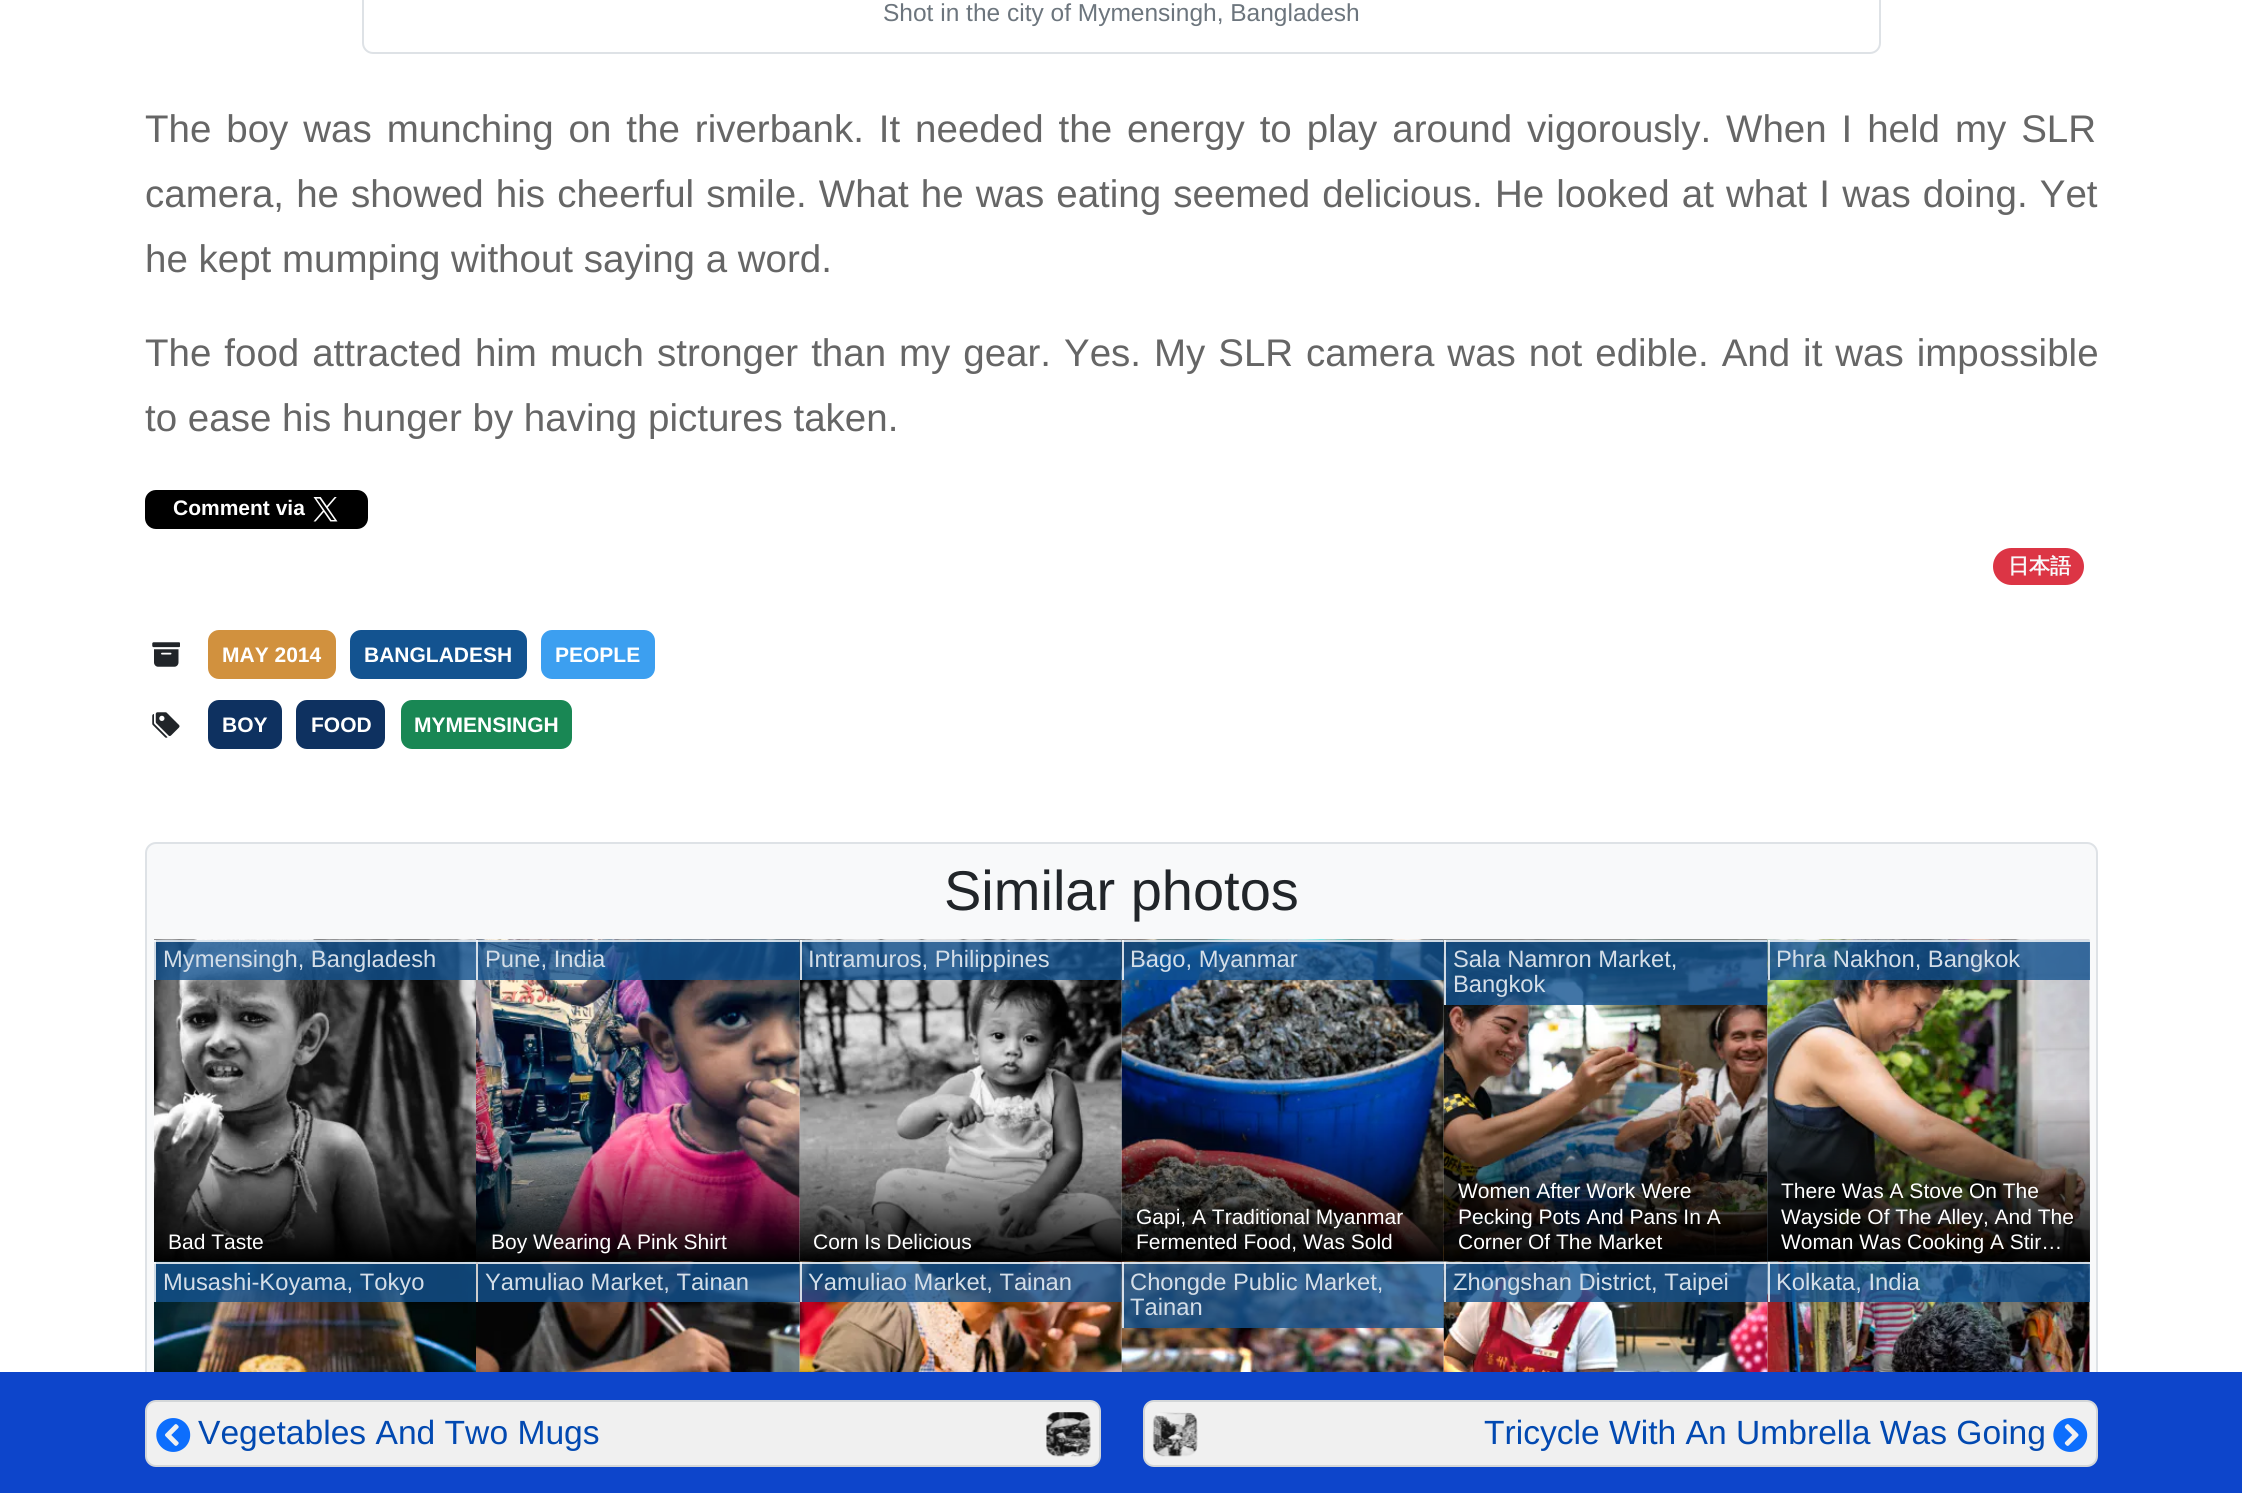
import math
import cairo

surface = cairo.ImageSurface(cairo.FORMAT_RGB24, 2242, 1493)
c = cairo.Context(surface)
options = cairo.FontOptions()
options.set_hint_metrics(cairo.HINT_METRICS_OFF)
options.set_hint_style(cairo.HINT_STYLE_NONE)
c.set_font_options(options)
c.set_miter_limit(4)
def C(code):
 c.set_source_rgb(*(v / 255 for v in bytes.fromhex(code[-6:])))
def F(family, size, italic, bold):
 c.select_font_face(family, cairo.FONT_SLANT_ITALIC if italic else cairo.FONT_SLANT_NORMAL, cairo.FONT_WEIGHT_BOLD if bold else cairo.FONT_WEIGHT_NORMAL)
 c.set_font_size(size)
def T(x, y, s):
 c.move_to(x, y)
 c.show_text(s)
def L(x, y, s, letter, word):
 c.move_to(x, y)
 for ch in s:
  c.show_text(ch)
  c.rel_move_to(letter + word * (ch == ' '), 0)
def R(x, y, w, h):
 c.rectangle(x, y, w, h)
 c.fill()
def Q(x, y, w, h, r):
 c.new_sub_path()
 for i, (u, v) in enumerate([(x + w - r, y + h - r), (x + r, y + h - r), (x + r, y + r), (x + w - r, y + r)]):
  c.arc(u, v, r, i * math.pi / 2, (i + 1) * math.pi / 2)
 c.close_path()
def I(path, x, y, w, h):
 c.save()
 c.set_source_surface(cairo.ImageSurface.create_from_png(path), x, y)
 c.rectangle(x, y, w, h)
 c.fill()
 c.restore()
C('ffffff')
c.paint()
Q(363,-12,1517,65,10)
C('dee2e6')
c.stroke()
F('Liberation Sans',24.5,0,0)
C('6c757d')
T(883,21,'Shot in the city of Mymensingh, Bangladesh')
F('Liberation Sans',38.5,0,0)
C('666666')
L(145,142,'The boy was munching on the riverbank. It needed the energy to play around vigorously. When I held my SLR',0,4.25)
L(145,207,'camera, he showed his cheerful smile. What he was eating seemed delicious. He looked at what I was doing. Yet',0,1.4)
T(145,272,'he kept mumping without saying a word.')
L(145,366,'The food attracted him much stronger than my gear. Yes. My SLR camera was not edible. And it was impossible',0,2.25)
T(145,431,'to ease his hunger by having pictures taken.')
C('000000')
Q(145,490,223,39,11)
c.fill()
F('Liberation Sans',21,0,1)
C('ffffff')
T(173,515,'Comment via')
I('1.png',313,497,25,25)
C('dc3545')
Q(1993,548,91,37,18.5)
c.fill()
F('WenQuanYi Zen Hei',21,0,1)
C('f8f9fa')
T(2008,573,'日本語')
I('2.png',152,642,28,25)
C('d1913e')
Q(208,630,128,49,11)
c.fill()
F('Liberation Sans',21,0,1)
C('ffffff')
T(222,662,'MAY 2014')
C('135390')
Q(350,630,177,49,11)
c.fill()
C('ffffff')
T(364,662,'BANGLADESH')
C('3c9ff0')
Q(541,630,114,49,11)
c.fill()
C('ffffff')
T(555,662,'PEOPLE')
I('3.png',152,712,28,26)
C('0e3160')
Q(208,700,74,49,11)
c.fill()
C('ffffff')
T(222,732,'BOY')
C('0e3160')
Q(296,700,89,49,11)
c.fill()
C('ffffff')
T(311,732,'FOOD')
C('198754')
Q(401,700,171,49,11)
c.fill()
C('ffffff')
T(414,732,'MYMENSINGH')
C('f8f9fa')
Q(146,843,1951,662,10)
c.fill_preserve()
C('dee2e6')
c.stroke()
F('Liberation Sans',56,0,0)
C('212529')
T(944,910,'Similar photos')
I('4.png',154,939,322,322)
c.set_source_rgba(0.075,0.325,0.565,0.8)
R(154,940,322,40)
c.set_source_rgba(1,1,1,0.8)
R(154,940,322,2)
R(154,940,2,40)
F('Liberation Sans',23.75,0,0)
C('d4dee8')
T(163,967,'Mymensingh, Bangladesh')
gradient = cairo.LinearGradient(315,1146,315,1262)
gradient.add_color_stop_rgba(0,0,0,0,0)
gradient.add_color_stop_rgba(1,0,0,0,1)
c.set_source(gradient)
R(154,1149,322,113)
F('Liberation Sans',21,0,0)
C('ffffff')
T(168,1249,'Bad Taste')
I('5.png',476,939,324,322)
c.set_source_rgba(0.075,0.325,0.565,0.8)
R(476,940,324,40)
c.set_source_rgba(1,1,1,0.8)
R(476,940,324,2)
R(476,940,2,40)
F('Liberation Sans',23.75,0,0)
C('d4dee8')
T(485,967,'Pune, India')
gradient = cairo.LinearGradient(638,1146,638,1262)
gradient.add_color_stop_rgba(0,0,0,0,0)
gradient.add_color_stop_rgba(1,0,0,0,1)
c.set_source(gradient)
R(476,1149,324,113)
F('Liberation Sans',21,0,0)
C('ffffff')
T(491,1249,'Boy Wearing A Pink Shirt')
I('6.png',799,939,323,323)
c.set_source_rgba(0.075,0.325,0.565,0.8)
R(800,940,322,40)
c.set_source_rgba(1,1,1,0.8)
R(800,940,322,2)
R(800,940,2,40)
F('Liberation Sans',23.75,0,0)
C('d4dee8')
T(808,967,'Intramuros, Philippines')
gradient = cairo.LinearGradient(961,1146,961,1262)
gradient.add_color_stop_rgba(0,0,0,0,0)
gradient.add_color_stop_rgba(1,0,0,0,1)
c.set_source(gradient)
R(800,1149,322,113)
F('Liberation Sans',21,0,0)
C('ffffff')
T(813,1249,'Corn Is Delicious')
I('7.png',1121,939,323,323)
c.set_source_rgba(0.075,0.325,0.565,0.8)
R(1122,940,322,40)
c.set_source_rgba(1,1,1,0.8)
R(1122,940,322,2)
R(1122,940,2,40)
F('Liberation Sans',23.75,0,0)
C('d4dee8')
T(1130,967,'Bago, Myanmar')
gradient = cairo.LinearGradient(1283,1120,1283,1262)
gradient.add_color_stop_rgba(0,0,0,0,0)
gradient.add_color_stop_rgba(1,0,0,0,1)
c.set_source(gradient)
R(1122,1123,322,139)
F('Liberation Sans',21,0,0)
C('ffffff')
T(1136,1224,'Gapi, A Traditional Myanmar')
T(1136,1249,'Fermented Food, Was Sold')
I('8.png',1443,939,325,323)
c.set_source_rgba(0.075,0.325,0.565,0.8)
R(1444,940,324,65)
c.set_source_rgba(1,1,1,0.8)
R(1444,940,324,2)
R(1444,940,2,65)
F('Liberation Sans',23.75,0,0)
C('d4dee8')
T(1453,967,'Sala Namron Market,')
T(1453,992,'Bangkok')
gradient = cairo.LinearGradient(1606,1096,1606,1262)
gradient.add_color_stop_rgba(0,0,0,0,0)
gradient.add_color_stop_rgba(1,0,0,0,1)
c.set_source(gradient)
R(1444,1100,324,162)
F('Liberation Sans',21,0,0)
C('ffffff')
T(1458,1198,'Women After Work Were')
T(1458,1224,'Pecking Pots And Pans In A')
T(1458,1249,'Corner Of The Market')
Q(1768,940,322,322,11)
c.fill()
I('9.png',1767,939,323,323)
c.set_source_rgba(0.075,0.325,0.565,0.8)
R(1768,940,322,40)
c.set_source_rgba(1,1,1,0.8)
R(1768,940,322,2)
R(1768,940,2,40)
F('Liberation Sans',23.75,0,0)
C('d4dee8')
T(1776,967,'Phra Nakhon, Bangkok')
gradient = cairo.LinearGradient(1929,1096,1929,1262)
gradient.add_color_stop_rgba(0,0,0,0,0)
gradient.add_color_stop_rgba(1,0,0,0,1)
c.set_source(gradient)
R(1768,1100,322,162)
F('Liberation Sans',21,0,0)
C('ffffff')
T(1781,1198,'There Was A Stove On The')
T(1781,1224,'Wayside Of The Alley, And The')
T(1781,1249,'Woman Was Cooking A Stir…')
I('10.png',154,1261,322,111)
c.set_source_rgba(0.075,0.325,0.565,0.8)
R(154,1262,322,40)
c.set_source_rgba(1,1,1,0.8)
R(154,1262,322,2)
R(154,1262,2,40)
F('Liberation Sans',23.75,0,0)
C('d4dee8')
T(163,1290,'Musashi-Koyama, Tokyo')
I('11.png',476,1261,324,111)
c.set_source_rgba(0.075,0.325,0.565,0.8)
R(478,1262,322,40)
c.set_source_rgba(1,1,1,0.8)
R(476,1262,324,2)
C('cdcdcd')
R(476,1262,2,40)
C('d4dee8')
T(485,1290,'Yamuliao Market, Tainan')
I('12.png',799,1261,323,111)
c.set_source_rgba(0.075,0.325,0.565,0.8)
R(800,1262,322,40)
c.set_source_rgba(1,1,1,0.8)
R(800,1262,322,2)
R(800,1262,2,40)
C('d4dee8')
T(808,1290,'Yamuliao Market, Tainan')
I('13.png',1121,1261,323,111)
c.set_source_rgba(0.075,0.325,0.565,0.8)
R(1122,1262,322,66)
c.set_source_rgba(1,1,1,0.8)
R(1122,1262,322,2)
R(1122,1262,2,66)
C('d4dee8')
T(1130,1290,'Chongde Public Market,')
T(1130,1315,'Tainan')
I('14.png',1443,1261,325,111)
c.set_source_rgba(0.075,0.325,0.565,0.8)
R(1444,1262,324,40)
c.set_source_rgba(1,1,1,0.8)
R(1444,1262,324,2)
R(1444,1262,2,40)
C('d4dee8')
T(1453,1290,'Zhongshan District, Taipei')
C('ffffff')
Q(1768,1262,322,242,11)
c.fill()
I('15.png',1767,1261,323,111)
c.set_source_rgba(0.075,0.325,0.565,0.8)
R(1768,1262,322,40)
c.set_source_rgba(1,1,1,0.8)
R(1768,1262,322,2)
R(1768,1262,2,40)
C('d4dee8')
T(1776,1290,'Kolkata, India')
C('0d45cb')
R(0,1372,2242,121)
C('f0f0f0')
Q(146,1401,954,65,10)
c.fill_preserve()
C('d3d6d8')
c.stroke()
I('16.png',156,1418,35,34)
F('Liberation Sans',33.6,0,0)
C('0249b1')
T(198,1444,'Vegetables And Two Mugs')
I('17.png',1046,1412,45,45)
C('f0f0f0')
Q(1144,1401,953,65,10)
c.fill_preserve()
C('d3d6d8')
c.stroke()
I('18.png',1152,1412,46,45)
C('0249b1')
T(1484,1444,'Tricycle With An Umbrella Was Going')
I('19.png',2053,1418,35,34)
surface.write_to_png('o.png')
